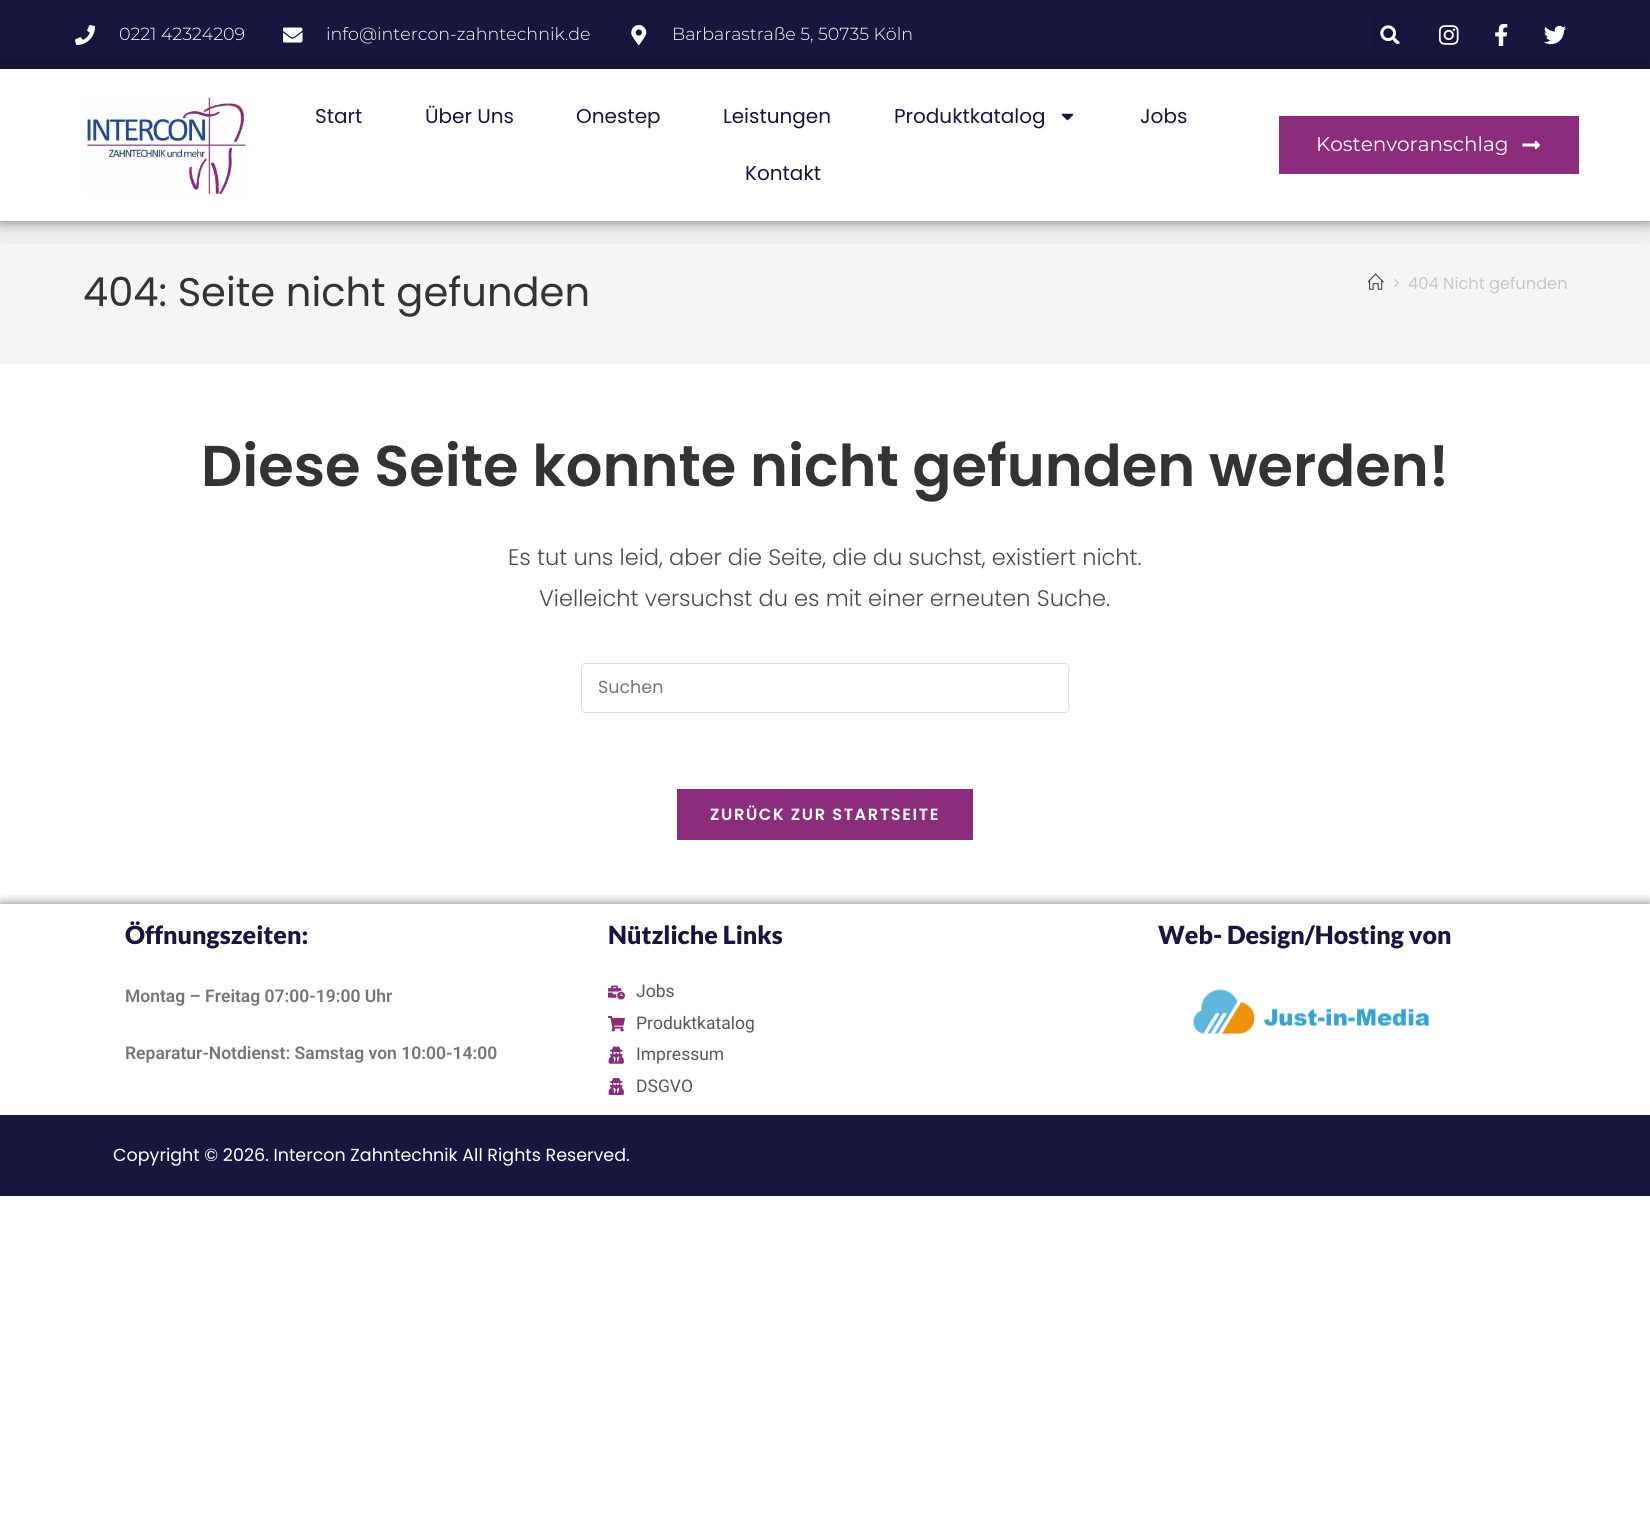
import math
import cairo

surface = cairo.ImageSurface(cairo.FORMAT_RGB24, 1650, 1527)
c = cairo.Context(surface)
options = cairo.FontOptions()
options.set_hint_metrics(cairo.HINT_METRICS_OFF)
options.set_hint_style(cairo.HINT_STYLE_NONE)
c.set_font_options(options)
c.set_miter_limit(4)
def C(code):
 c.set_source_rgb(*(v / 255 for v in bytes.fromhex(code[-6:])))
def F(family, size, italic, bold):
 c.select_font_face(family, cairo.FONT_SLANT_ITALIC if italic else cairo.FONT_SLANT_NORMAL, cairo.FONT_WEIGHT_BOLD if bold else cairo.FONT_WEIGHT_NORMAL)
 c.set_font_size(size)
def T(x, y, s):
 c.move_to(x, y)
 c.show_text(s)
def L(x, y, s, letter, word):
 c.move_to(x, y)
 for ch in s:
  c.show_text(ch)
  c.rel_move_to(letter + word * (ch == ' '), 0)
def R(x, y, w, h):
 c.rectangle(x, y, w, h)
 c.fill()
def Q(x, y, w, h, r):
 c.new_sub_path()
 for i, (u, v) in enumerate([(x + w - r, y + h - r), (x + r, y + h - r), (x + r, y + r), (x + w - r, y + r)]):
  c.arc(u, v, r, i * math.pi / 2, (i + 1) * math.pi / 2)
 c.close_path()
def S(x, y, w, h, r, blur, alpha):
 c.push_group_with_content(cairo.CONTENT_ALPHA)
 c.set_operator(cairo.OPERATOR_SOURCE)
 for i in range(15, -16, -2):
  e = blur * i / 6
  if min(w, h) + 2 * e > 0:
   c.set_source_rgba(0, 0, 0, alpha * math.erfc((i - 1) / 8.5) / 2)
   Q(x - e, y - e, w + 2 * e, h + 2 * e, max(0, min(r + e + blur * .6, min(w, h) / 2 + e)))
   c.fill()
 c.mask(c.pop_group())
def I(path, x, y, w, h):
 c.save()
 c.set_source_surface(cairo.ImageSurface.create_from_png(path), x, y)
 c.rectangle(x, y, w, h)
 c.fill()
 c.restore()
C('ffffff')
c.paint()
C('f1f1f1')
R(0,221,1650,1)
C('f5f5f5')
R(0,223,1650,141)
I('11.png',1368,273,16,17)
c.save()
c.rectangle(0,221,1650,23)
c.clip()
C('000000')
S(0,6,1650,222,0,19,.1)
c.restore()
C('16163f')
R(0,0,1650,69)
I('1.png',75,25,20,20)
F('Montserrat Light',17.5,0,0)
C('ffffff')
T(119,40,'0221 42324209')
I('2.png',283,27,20,16)
T(326,40,'info@intercon-zahntechnik.de')
I('3.png',631,25,16,20)
T(672,40,'Barbarastraße 5, 50735 Köln')
C('15153c')
Q(1371,15,39,39,4)
c.fill()
I('4.png',1380,25,20,19)
I('5.png',1438,25,21,20)
I('6.png',1495,24,13,22)
I('7.png',1544,25,22,20)
c.save()
c.set_fill_rule(cairo.FILL_RULE_EVEN_ODD)
c.new_path()
c.move_to(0,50)
c.line_to(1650,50)
c.line_to(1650,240)
c.line_to(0,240)
c.close_path()
c.move_to(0,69)
c.line_to(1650,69)
c.line_to(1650,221)
c.line_to(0,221)
c.close_path()
c.clip()
C('000000')
S(0,69,1650,152,0,6,.5)
c.restore()
I('8.png',83,97,166,97)
F('Poppins',20,0,0)
C('16163f')
T(315,123,'Start')
T(425,123,'Über Uns')
T(576,123,'Onestep')
T(723,123,'Leistungen')
T(894,123,'Produktkatalog')
I('9.png',1061,113,13,8)
T(1140,123,'Jobs')
T(745,180,'Kontakt')
C('8b2c7c')
R(1279,116,300,58)
F('Montserrat',20,0,0)
C('ffffff')
T(1316,151,'Kostenvoranschlag')
I('10.png',1522,140,18,10)
F('Poppins',40,0,0)
C('333333')
T(83,306,'404: Seite nicht gefunden')
F('Poppins',16.25,0,0)
C('c6c6c6')
T(1392,289,'>')
T(1408,289,'404 Nicht gefunden')
F('Poppins SemiBold',57.5,0,0)
C('333333')
T(201,486,'Diese Seite konnte nicht gefunden werden!')
F('Poppins Light',22.5,0,0)
C('4a4a4a')
T(508,565,'Es tut uns leid, aber die Seite, die du suchst, existiert nicht.')
T(539,606,'Vielleicht versuchst du es mit einer erneuten Suche.')
Q(581.5,663.5,487,49,3.5)
C('dddddd')
c.set_line_width(1)
c.stroke()
F('Poppins',17.5,0,0)
C('757575')
T(598,693,'Suchen')
C('8b2c7c')
R(677,789,296,51)
F('Poppins SemiBold',16.25,0,0)
C('ffffff')
L(710,820,'ZURÜCK ZUR STARTSEITE',1.6,0)
c.save()
c.rectangle(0,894,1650,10)
c.clip()
C('000000')
S(0,904,1650,211,0,6,.5)
c.restore()
F('Lato Black',25,0,0)
C('16163f')
T(125,944,'Öffnungszeiten:')
F('Roboto SemiBold',17.5,0,0)
C('757575')
T(125,1002,'Montag – Freitag 07:00-19:00 Uhr')
T(125,1059,'Reparatur-Notdienst: Samstag von 10:00-14:00')
F('Lato Black',25,0,0)
C('16163f')
T(608,944,'Nützliche Links')
I('12.png',608,985,17,15)
F('Roboto',17.5,0,0)
C('54595f')
T(636,997,'Jobs')
I('13.png',608,1016,17,16)
T(636,1029,'Produktkatalog')
I('14.png',608,1046,16,18)
T(636,1060,'Impressum')
I('15.png',608,1078,16,17)
T(636,1092,'DSGVO')
F('Lato Black',25,0,0)
C('16163f')
T(1158,944,'Web- Design/Hosting von')
I('16.png',1193,989,236,46)
R(0,1115,1650,81)
F('Poppins',17.5,0,0)
C('ffffff')
T(113,1161,'Copyright © 2026. Intercon Zahntechnik All Rights Reserved.')
surface.write_to_png('o.png')
